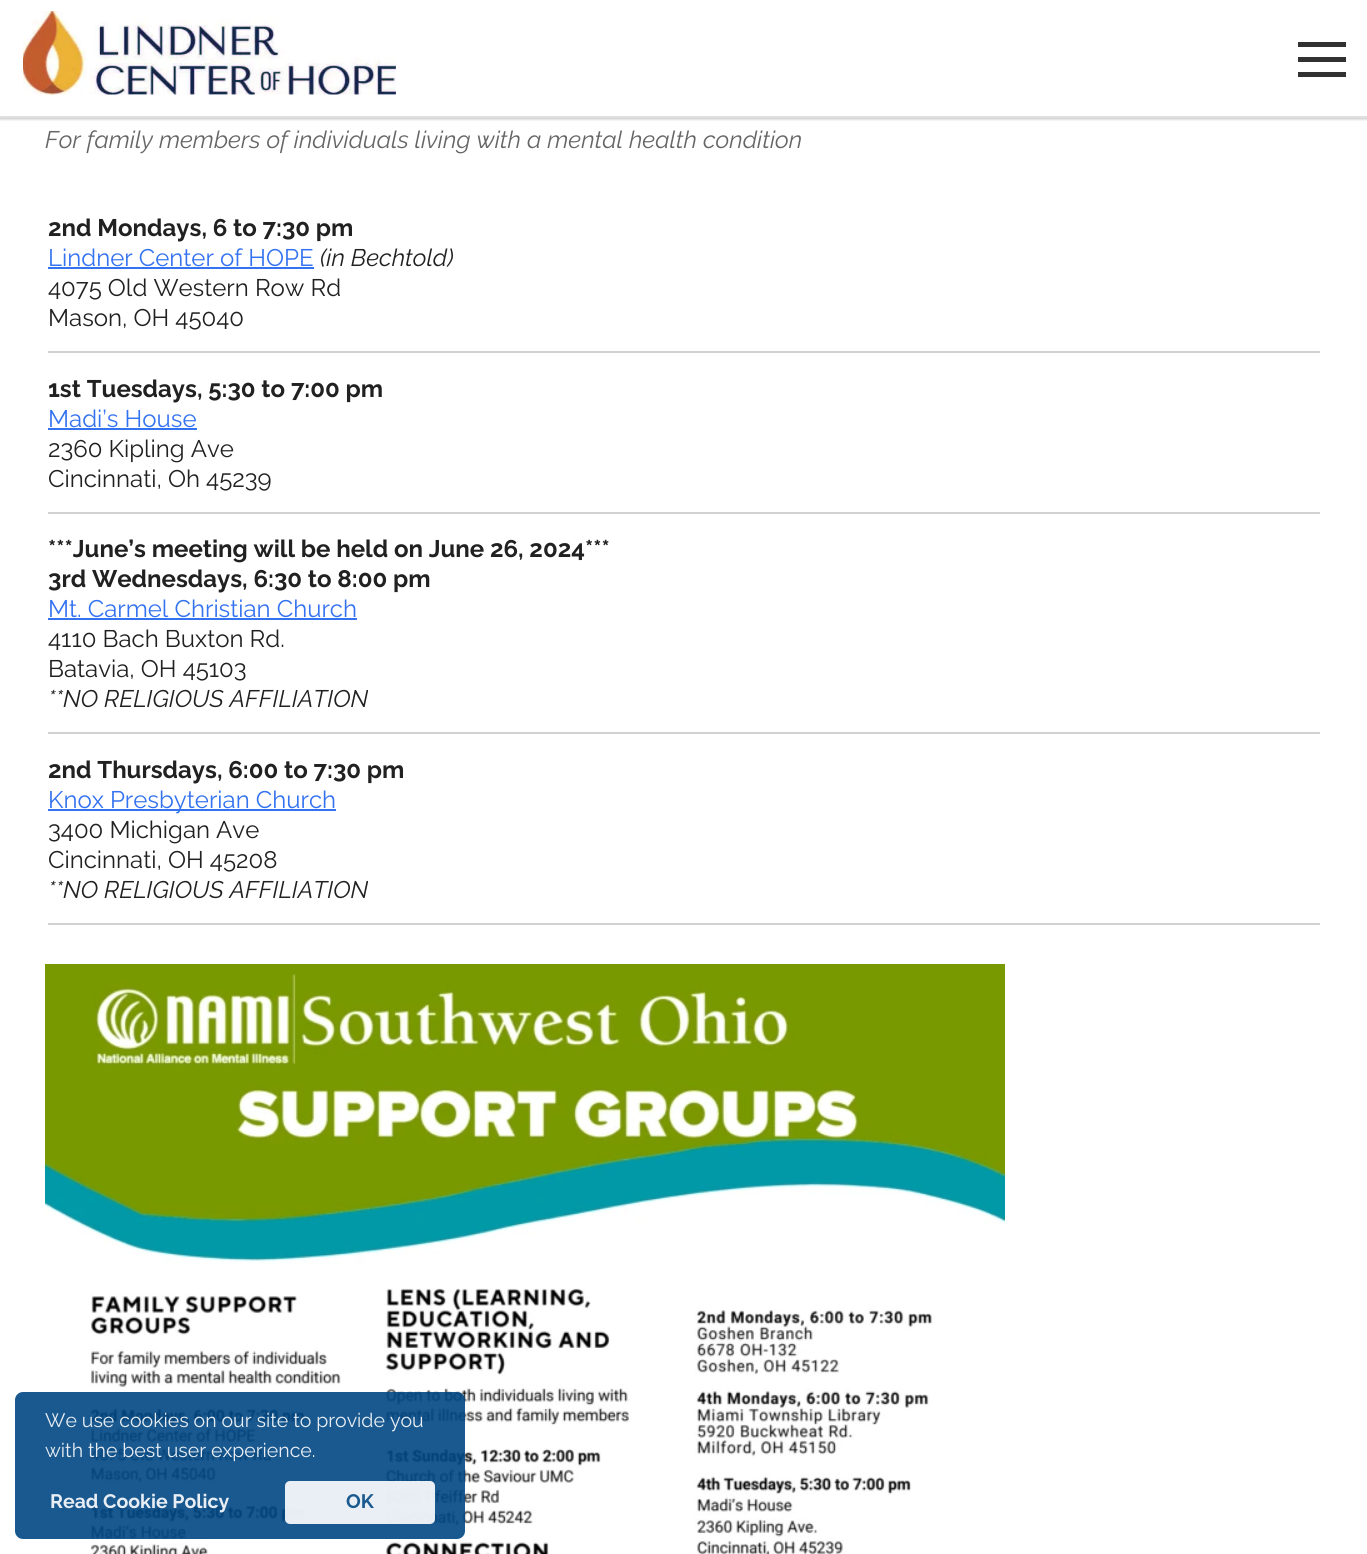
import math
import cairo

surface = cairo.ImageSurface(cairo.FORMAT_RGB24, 1367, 1554)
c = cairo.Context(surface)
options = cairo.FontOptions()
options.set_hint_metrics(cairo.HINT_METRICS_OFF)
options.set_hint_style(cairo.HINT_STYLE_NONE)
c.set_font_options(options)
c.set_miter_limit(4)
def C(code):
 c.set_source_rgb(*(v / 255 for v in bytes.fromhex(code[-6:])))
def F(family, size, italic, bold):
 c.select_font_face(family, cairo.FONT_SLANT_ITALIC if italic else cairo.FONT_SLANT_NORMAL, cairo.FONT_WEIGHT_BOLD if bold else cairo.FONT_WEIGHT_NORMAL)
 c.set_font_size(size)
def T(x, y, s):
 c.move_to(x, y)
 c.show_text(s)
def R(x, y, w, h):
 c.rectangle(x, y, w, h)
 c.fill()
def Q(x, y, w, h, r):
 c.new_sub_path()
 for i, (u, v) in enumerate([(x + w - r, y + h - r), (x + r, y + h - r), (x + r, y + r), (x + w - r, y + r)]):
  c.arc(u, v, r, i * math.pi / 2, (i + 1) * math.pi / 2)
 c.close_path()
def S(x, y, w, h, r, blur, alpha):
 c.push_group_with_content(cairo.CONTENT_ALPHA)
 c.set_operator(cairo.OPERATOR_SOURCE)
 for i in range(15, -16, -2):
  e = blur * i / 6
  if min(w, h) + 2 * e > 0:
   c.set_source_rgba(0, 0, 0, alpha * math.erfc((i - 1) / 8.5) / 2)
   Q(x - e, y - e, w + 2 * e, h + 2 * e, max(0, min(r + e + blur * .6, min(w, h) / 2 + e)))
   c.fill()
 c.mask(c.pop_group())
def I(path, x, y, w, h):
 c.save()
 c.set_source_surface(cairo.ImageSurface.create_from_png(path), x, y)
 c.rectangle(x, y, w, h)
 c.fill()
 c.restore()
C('ffffff')
c.paint()
C('000000')
S(0,2,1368,117,0,1.5,.25)
C('ffffff')
R(0,0,1367,116)
I('1.png',23,11,373,84)
C('323132')
R(1298,42,48,5)
R(1298,57,48,5)
R(1298,72,48,5)
C('e0e0e0')
R(0,116,1367,2)
F('Raleway',24,1,0)
C('666666')
T(45,148,'For family members of individuals living with a mental health condition')
C('d1d1d1')
R(48,351,1272,2)
F('Raleway',24,0,1)
C('212121')
T(48,236,'2nd Mondays, 6 to 7:30 pm')
F('Raleway',24,0,0)
C('3372f0')
T(48,266,'Lindner Center of HOPE')
R(48,267,266,2)
F('Raleway',24,1,0)
C('212121')
T(320,266,'(in Bechtold)')
F('Raleway',24,0,0)
T(48,296,'4075 Old Western Row Rd')
T(48,326,'Mason, OH 45040')
C('d1d1d1')
R(48,512,1272,2)
F('Raleway',24,0,1)
C('212121')
T(48,397,'1st Tuesdays, 5:30 to 7:00 pm')
F('Raleway',24,0,0)
C('3372f0')
T(48,427,'Madi’s House')
R(48,428,149,2)
C('212121')
T(48,457,'2360 Kipling Ave')
T(48,487,'Cincinnati, Oh 45239')
C('d1d1d1')
R(48,732,1272,2)
F('Raleway',24,0,1)
C('212121')
T(48,557,'***June’s meeting will be held on June 26, 2024***')
T(48,587,'3rd Wednesdays, 6:30 to 8:00 pm')
F('Raleway',24,0,0)
C('3372f0')
T(48,617,'Mt. Carmel Christian Church')
R(48,618,309,2)
C('212121')
T(48,647,'4110 Bach Buxton Rd.')
T(48,677,'Batavia, OH 45103')
F('Raleway',24,1,0)
T(48,707,'**NO RELIGIOUS AFFILIATION')
C('d1d1d1')
R(48,923,1272,2)
F('Raleway',24,0,1)
C('212121')
T(48,778,'2nd Thursdays, 6:00 to 7:30 pm')
C('3372f0')
R(48,809,288,2)
F('Raleway',24,0,0)
T(48,808,'Knox Presbyterian Church')
C('212121')
T(48,838,'3400 Michigan Ave')
T(48,868,'Cincinnati, OH 45208')
F('Raleway',24,1,0)
T(48,898,'**NO RELIGIOUS AFFILIATION')
I('2.png',45,964,960,590)
c.set_source_rgba(0.008,0.282,0.514,0.9)
Q(15,1392,450,147,8)
c.fill()
F('Raleway',19.5,0,0)
C('e8eef4')
T(45,1427,'We use cookies on our site to provide you')
T(45,1457,'with the best user experience.')
F('Raleway',19.5,0,1)
T(50,1508,'Read Cookie Policy')
c.set_source_rgba(1,1,1,0.9)
Q(285,1481,150,43,5)
c.fill()
C('1b5a8f')
T(346,1508,'OK')
surface.write_to_png('o.png')
